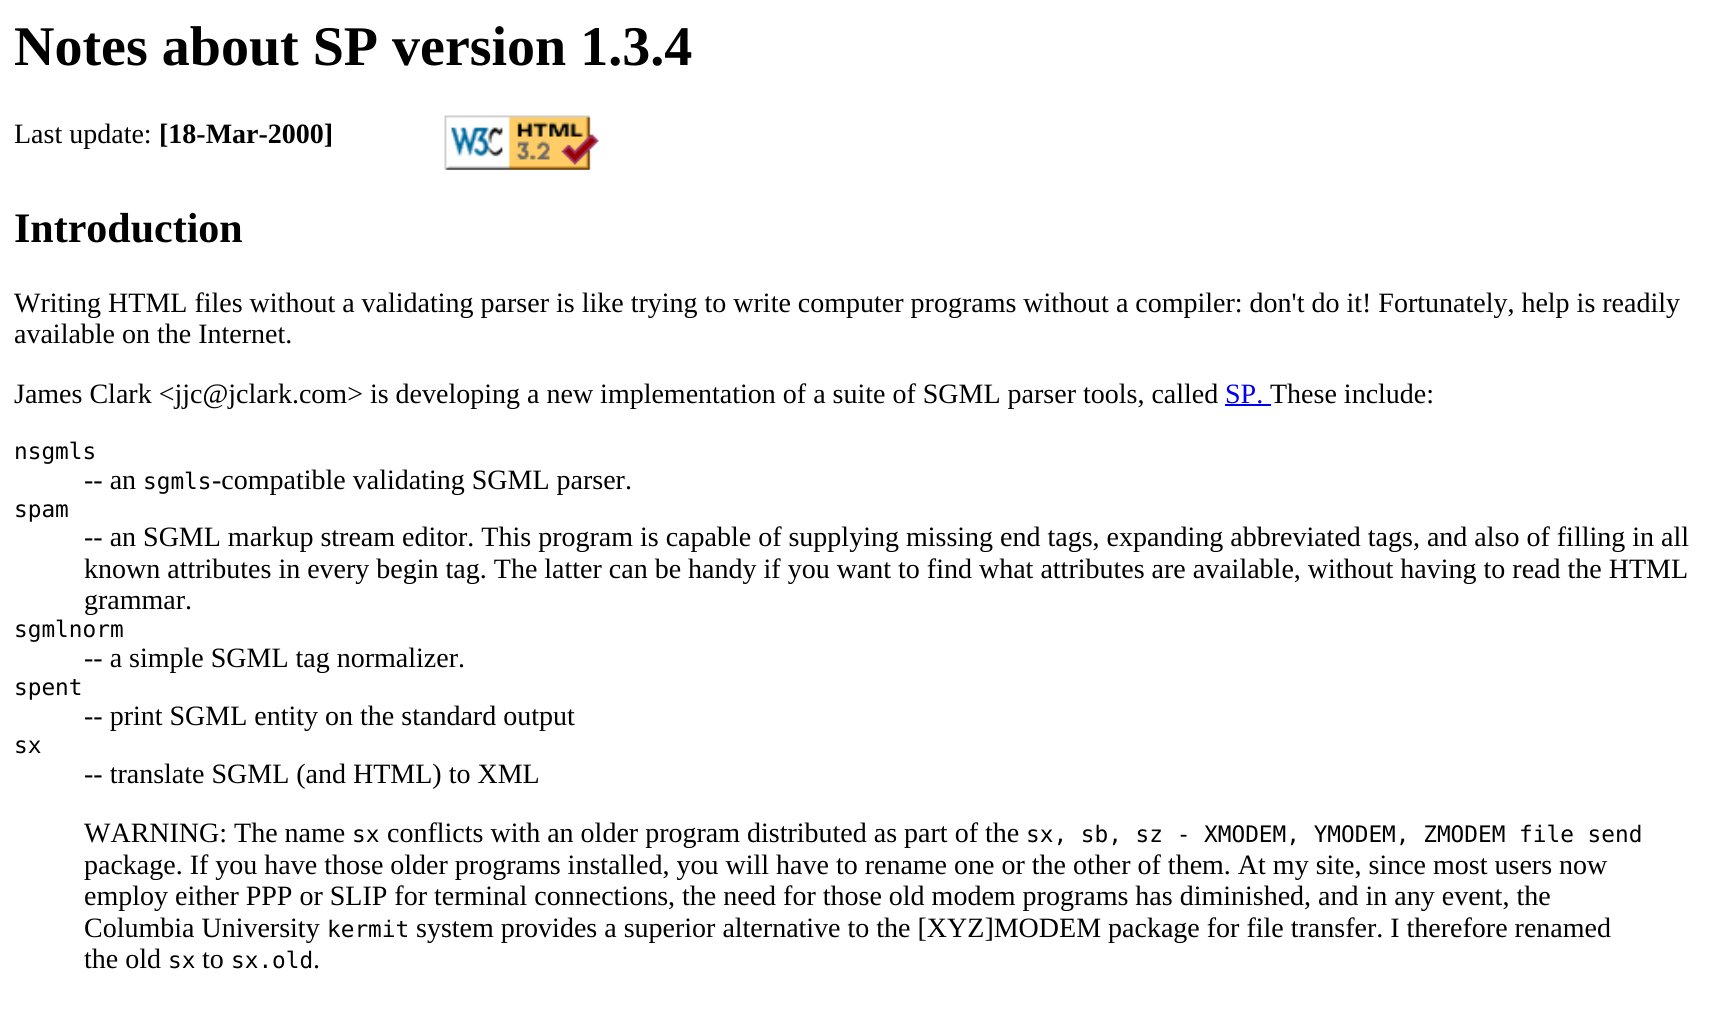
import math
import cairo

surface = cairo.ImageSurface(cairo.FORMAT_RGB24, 1726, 1018)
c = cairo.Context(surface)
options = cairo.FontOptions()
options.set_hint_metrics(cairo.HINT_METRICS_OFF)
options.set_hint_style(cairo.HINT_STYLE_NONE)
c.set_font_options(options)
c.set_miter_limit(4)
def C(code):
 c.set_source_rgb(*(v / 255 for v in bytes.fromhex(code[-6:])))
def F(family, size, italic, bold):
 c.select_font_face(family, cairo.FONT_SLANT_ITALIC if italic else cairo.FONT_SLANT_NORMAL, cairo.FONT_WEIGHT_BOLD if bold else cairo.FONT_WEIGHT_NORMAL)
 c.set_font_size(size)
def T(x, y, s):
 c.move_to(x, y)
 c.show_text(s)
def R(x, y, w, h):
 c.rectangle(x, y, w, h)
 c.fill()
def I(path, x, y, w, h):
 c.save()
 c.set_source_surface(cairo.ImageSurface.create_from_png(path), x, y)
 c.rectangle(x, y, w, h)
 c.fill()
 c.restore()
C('ffffff')
c.paint()
F('Liberation Serif',56,0,1)
C('000000')
T(14,65,'Notes about SP version 1.3.4')
F('Liberation Serif',28,0,0)
T(14,143,'Last update:')
F('Liberation Serif',28,0,1)
T(159,143,'[18-Mar-2000]')
I('1.png',444,115,155,55)
F('Liberation Serif',42,0,1)
T(14,242,'Introduction')
F('Liberation Serif',28,0,0)
T(14,312,'Writing HTML files without a validating parser is like trying to write computer programs without a compiler: don\'t do it! Fortunately, help is readily')
T(14,343,'available on the Internet.')
T(14,403,'James Clark <jjc@jclark.com> is developing a new implementation of a suite of SGML parser tools, called')
C('0000ee')
T(1225,403,'SP.')
R(1225,404,46,2)
C('000000')
T(1270,403,'These include:')
F('DejaVu Sans Mono',22.75,0,0)
T(14,459,'nsgmls')
F('Liberation Serif',28,0,0)
T(84,489,'-- an')
F('DejaVu Sans Mono',22.75,0,0)
T(143,489,'sgmls')
F('Liberation Serif',28,0,0)
T(212,489,'-compatible validating SGML parser.')
F('DejaVu Sans Mono',22.75,0,0)
T(14,517,'spam')
F('Liberation Serif',28,0,0)
T(84,546,'-- an SGML markup stream editor. This program is capable of supplying missing end tags, expanding abbreviated tags, and also of filling in all')
T(84,578,'known attributes in every begin tag. The latter can be handy if you want to find what attributes are available, without having to read the HTML')
T(84,609,'grammar.')
F('DejaVu Sans Mono',22.75,0,0)
T(14,637,'sgmlnorm')
F('Liberation Serif',28,0,0)
T(84,667,'-- a simple SGML tag normalizer.')
F('DejaVu Sans Mono',22.75,0,0)
T(14,695,'spent')
F('Liberation Serif',28,0,0)
T(84,725,'-- print SGML entity on the standard output')
F('DejaVu Sans Mono',22.75,0,0)
T(14,753,'sx')
F('Liberation Serif',28,0,0)
T(84,783,'-- translate SGML (and HTML) to XML')
T(84,842,'WARNING: The name')
F('DejaVu Sans Mono',22.75,0,0)
T(352,842,'sx')
F('Liberation Serif',28,0,0)
T(387,842,'conflicts with an older program distributed as part of the')
F('DejaVu Sans Mono',22.75,0,0)
T(1026,842,'sx, sb, sz - XMODEM, YMODEM, ZMODEM file send')
F('Liberation Serif',28,0,0)
T(84,874,'package. If you have those older programs installed, you will have to rename one or the other of them. At my site, since most users now')
T(84,905,'employ either PPP or SLIP for terminal connections, the need for those old modem programs has diminished, and in any event, the')
T(84,937,'Columbia University')
F('DejaVu Sans Mono',22.75,0,0)
T(327,937,'kermit')
F('Liberation Serif',28,0,0)
T(416,937,'system provides a superior alternative to the [XYZ]MODEM package for file transfer. I therefore renamed')
T(84,968,'the old')
F('DejaVu Sans Mono',22.75,0,0)
T(168,968,'sx')
F('Liberation Serif',28,0,0)
T(202,968,'to')
F('DejaVu Sans Mono',22.75,0,0)
T(231,968,'sx.old')
F('Liberation Serif',28,0,0)
T(313,968,'.')
surface.write_to_png('o.png')
